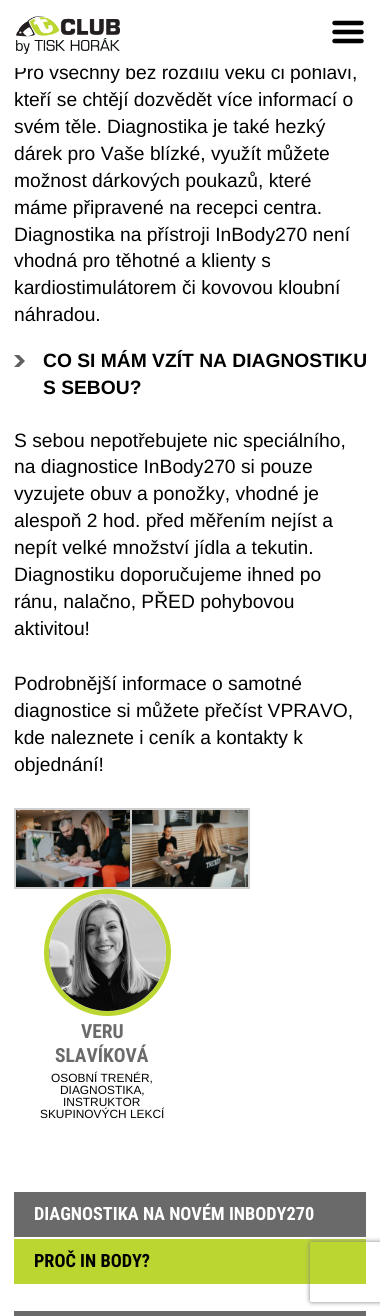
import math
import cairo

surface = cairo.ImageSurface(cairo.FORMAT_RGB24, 380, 1316)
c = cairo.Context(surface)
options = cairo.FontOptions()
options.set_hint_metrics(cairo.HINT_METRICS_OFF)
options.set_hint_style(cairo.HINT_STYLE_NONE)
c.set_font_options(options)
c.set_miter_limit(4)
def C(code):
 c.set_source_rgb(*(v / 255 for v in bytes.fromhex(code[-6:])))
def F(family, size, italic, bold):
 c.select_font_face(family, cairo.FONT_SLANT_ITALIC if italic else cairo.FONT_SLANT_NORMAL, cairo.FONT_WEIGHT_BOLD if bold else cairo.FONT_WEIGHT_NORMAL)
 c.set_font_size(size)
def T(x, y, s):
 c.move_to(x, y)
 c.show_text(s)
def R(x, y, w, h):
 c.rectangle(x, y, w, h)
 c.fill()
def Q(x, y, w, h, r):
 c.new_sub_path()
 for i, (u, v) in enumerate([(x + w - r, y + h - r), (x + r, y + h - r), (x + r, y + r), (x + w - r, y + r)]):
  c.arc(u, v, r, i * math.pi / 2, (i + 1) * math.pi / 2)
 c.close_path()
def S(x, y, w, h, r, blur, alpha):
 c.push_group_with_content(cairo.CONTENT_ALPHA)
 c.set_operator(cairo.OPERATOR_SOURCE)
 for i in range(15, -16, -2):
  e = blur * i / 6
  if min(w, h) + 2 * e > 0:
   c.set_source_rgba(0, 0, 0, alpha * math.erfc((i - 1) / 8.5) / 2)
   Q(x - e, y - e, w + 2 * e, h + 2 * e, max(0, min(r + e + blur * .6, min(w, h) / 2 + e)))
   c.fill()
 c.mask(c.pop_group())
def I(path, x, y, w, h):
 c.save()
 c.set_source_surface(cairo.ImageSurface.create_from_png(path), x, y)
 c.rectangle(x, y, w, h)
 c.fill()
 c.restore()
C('ffffff')
c.paint()
F('Liberation Sans',19.25,0,0)
C('000000')
T(14,79,'Pro všechny bez rozdílu věku či pohlaví,')
C('ffffff')
R(15,64,337,4)
I('1.png',16,16,104,38)
I('2.png',332,20,32,24)
C('000000')
T(14,106,'kteří se chtějí dozvědět více informací o')
T(14,133,'svém těle. Diagnostika je také hezký')
T(14,160,'dárek pro Vaše blízké, využít můžete')
T(14,187,'možnost dárkových poukazů, které')
T(14,214,'máme připravené na recepci centra.')
T(14,241,'Diagnostika na přístroji InBody270 není')
T(14,267,'vhodná pro těhotné a klienty s')
T(14,294,'kardiostimulátorem či kovovou kloubní')
T(14,321,'náhradou.')
I('3.png',14,355,11,12)
F('Liberation Sans',19.25,0,1)
T(43,367,'CO SI MÁM VZÍT NA DIAGNOSTIKU')
T(43,394,'S SEBOU?')
F('Liberation Sans',19.25,0,0)
T(14,447,'S sebou nepotřebujete nic speciálního,')
T(14,473,'na diagnostice InBody270 si pouze')
T(14,500,'vyzujete obuv a ponožky, vhodné je')
T(14,527,'alespoň 2 hod. před měřením nejíst a')
T(14,554,'nepít velké množství jídla a tekutin.')
T(14,581,'Diagnostiku doporučujeme ihned po')
T(14,608,'ránu, nalačno, PŘED pohybovou')
T(14,635,'aktivitou!')
T(14,690,'Podrobnější informace o samotné')
T(14,717,'diagnostice si můžete přečíst VPRAVO,')
T(14,744,'kde naleznete i ceník a kontakty k')
T(14,771,'objednání!')
c.rectangle(15,809,118,79)
C('cfcfcf')
c.stroke()
I('4.png',16,810,114,77)
c.rectangle(131,809,118,79)
c.stroke()
I('5.png',132,810,116,77)
c.arc(107.5,952.5,61,0,2 * math.pi)
C('bcd631')
c.set_line_width(5)
c.stroke()
I('6.png',49,894,117,117)
F('Roboto Condensed',19.5,0,1)
C('6a6a6a')
T(81,1038,'VERU')
T(55,1062,'SLAVÍKOVÁ')
F('Liberation Sans',11.9,0,0)
C('000000')
T(51,1082,'OSOBNÍ TRENÉR,')
T(60,1094,'DIAGNOSTIKA,')
T(63,1106,'INSTRUKTOR')
T(40,1118,'SKUPINOVÝCH LEKCÍ')
C('6a6a6a')
R(14,1192,352,45)
F('Roboto Condensed',18.25,0,1)
C('ffffff')
T(34,1220,'DIAGNOSTIKA NA NOVÉM INBODY270')
C('bcd631')
R(14,1239,352,45)
C('000000')
T(34,1267,'PROČ IN BODY?')
C('6a6a6a')
R(14,1311,352,5)
c.save()
c.set_fill_rule(cairo.FILL_RULE_EVEN_ODD)
c.new_path()
c.move_to(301,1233)
c.line_to(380,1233)
c.line_to(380,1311)
c.line_to(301,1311)
c.close_path()
c.move_to(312,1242)
c.line_to(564,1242)
c.curve_to(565,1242,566,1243,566,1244)
c.line_to(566,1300)
c.curve_to(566,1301,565,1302,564,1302)
c.line_to(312,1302)
c.curve_to(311,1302,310,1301,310,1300)
c.line_to(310,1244)
c.curve_to(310,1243,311,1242,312,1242)
c.close_path()
c.clip()
C('808080')
S(310,1242,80,60,2,2.5,1)
c.restore()
surface.write_to_png('o.png')
